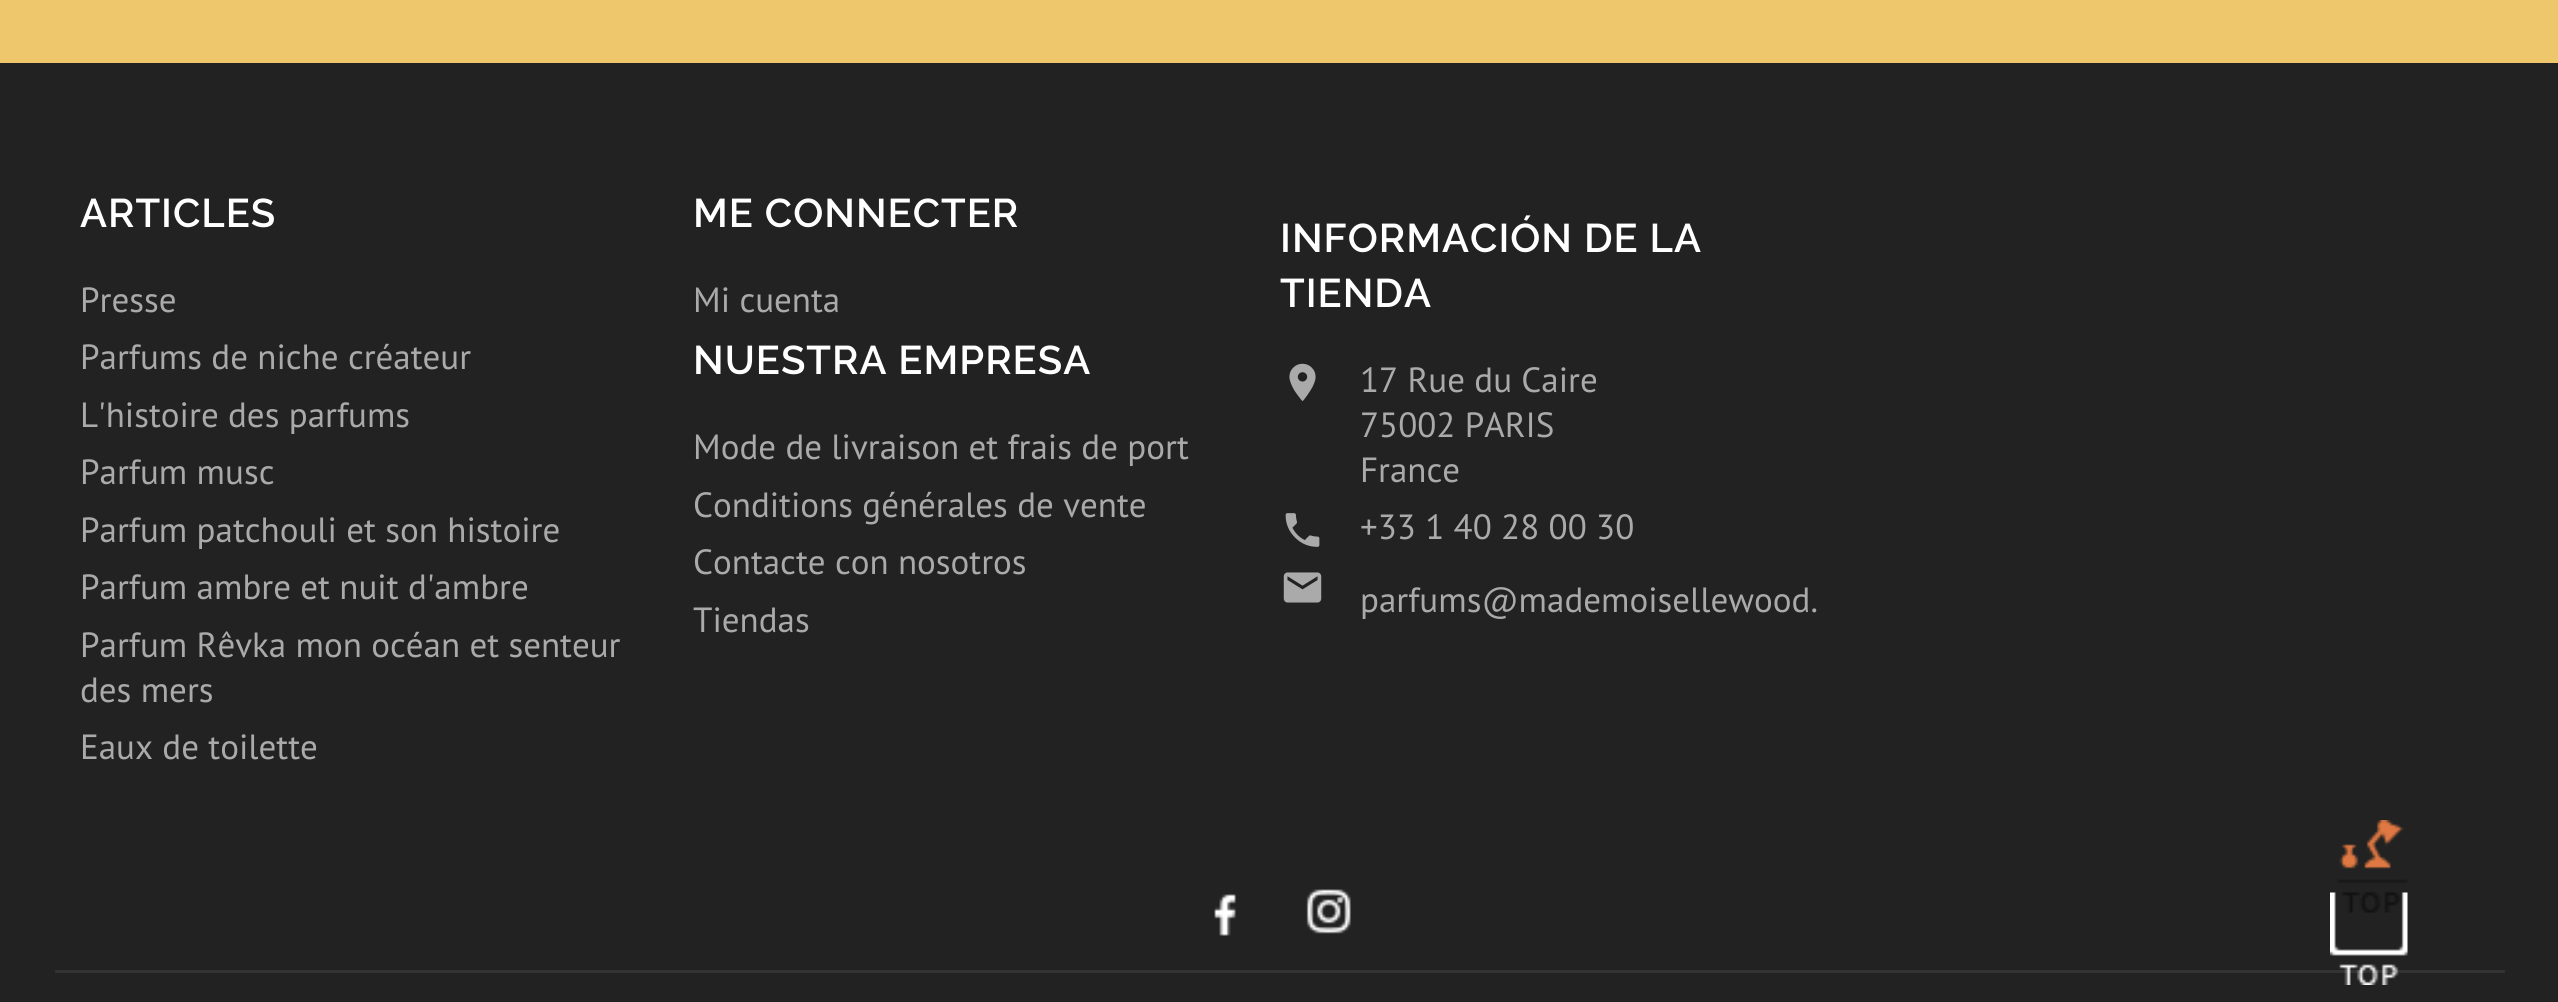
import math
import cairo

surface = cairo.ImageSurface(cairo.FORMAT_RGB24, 2558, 1002)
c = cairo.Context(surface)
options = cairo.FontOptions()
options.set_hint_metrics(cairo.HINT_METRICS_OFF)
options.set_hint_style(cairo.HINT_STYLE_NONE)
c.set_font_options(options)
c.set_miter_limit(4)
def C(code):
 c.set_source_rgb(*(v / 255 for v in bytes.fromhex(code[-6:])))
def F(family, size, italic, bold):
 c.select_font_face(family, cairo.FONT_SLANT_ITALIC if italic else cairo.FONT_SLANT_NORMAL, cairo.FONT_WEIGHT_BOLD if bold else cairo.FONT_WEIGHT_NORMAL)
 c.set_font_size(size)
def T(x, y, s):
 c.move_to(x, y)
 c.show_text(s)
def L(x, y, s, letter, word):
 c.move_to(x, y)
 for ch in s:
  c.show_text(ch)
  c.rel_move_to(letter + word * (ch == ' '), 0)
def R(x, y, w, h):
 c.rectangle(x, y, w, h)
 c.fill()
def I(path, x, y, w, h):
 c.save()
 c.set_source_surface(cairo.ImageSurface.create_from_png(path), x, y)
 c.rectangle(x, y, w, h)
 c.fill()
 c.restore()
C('eec66c')
c.paint()
C('222222')
R(0,63,2558,939)
F('Raleway SemiBold',40,0,0)
C('ffffff')
L(80,227,'ARTICLES',1,0)
F('PT Sans',35,0,0)
C('aaaaaa')
T(80,312,'Presse')
T(80,369,'Parfums de niche créateur')
T(80,427,'L\'histoire des parfums')
T(80,484,'Parfum musc')
T(80,542,'Parfum patchouli et son histoire')
T(80,599,'Parfum ambre et nuit d\'ambre')
T(80,657,'Parfum Rêvka mon océan et senteur')
T(80,702,'des mers')
T(80,759,'Eaux de toilette')
F('Raleway SemiBold',40,0,0)
C('ffffff')
L(693,227,'ME CONNECTER',1,0)
F('PT Sans',35,0,0)
C('aaaaaa')
T(693,312,'Mi cuenta')
F('Raleway SemiBold',40,0,0)
C('ffffff')
L(693,374,'NUESTRA EMPRESA',1,0)
F('PT Sans',35,0,0)
C('aaaaaa')
T(693,459,'Mode de livraison et frais de port')
T(693,517,'Conditions générales de vente')
T(693,574,'Contacte con nosotros')
T(693,632,'Tiendas')
F('Raleway SemiBold',40,0,0)
C('ffffff')
L(1280,252,'INFORMACIÓN DE LA',1,0)
L(1280,307,'TIENDA',1,0)
I('1.png',1289,363,27,39)
F('PT Sans',35,0,0)
C('aaaaaa')
T(1360,392,'17 Rue du Caire')
T(1360,437,'75002 PARIS')
T(1360,482,'France')
I('2.png',1285,513,35,34)
T(1360,539,'+33 1 40 28 00 30')
I('3.png',1283,572,39,31)
T(1360,612,'parfums@mademoisellewood.')
I('4.png',1214,894,22,42)
I('5.png',1306,889,45,45)
I('6.png',2337,820,71,93)
C('333333')
R(55,970,2450,3)
I('7.png',2330,892,78,93)
surface.write_to_png('o.png')
